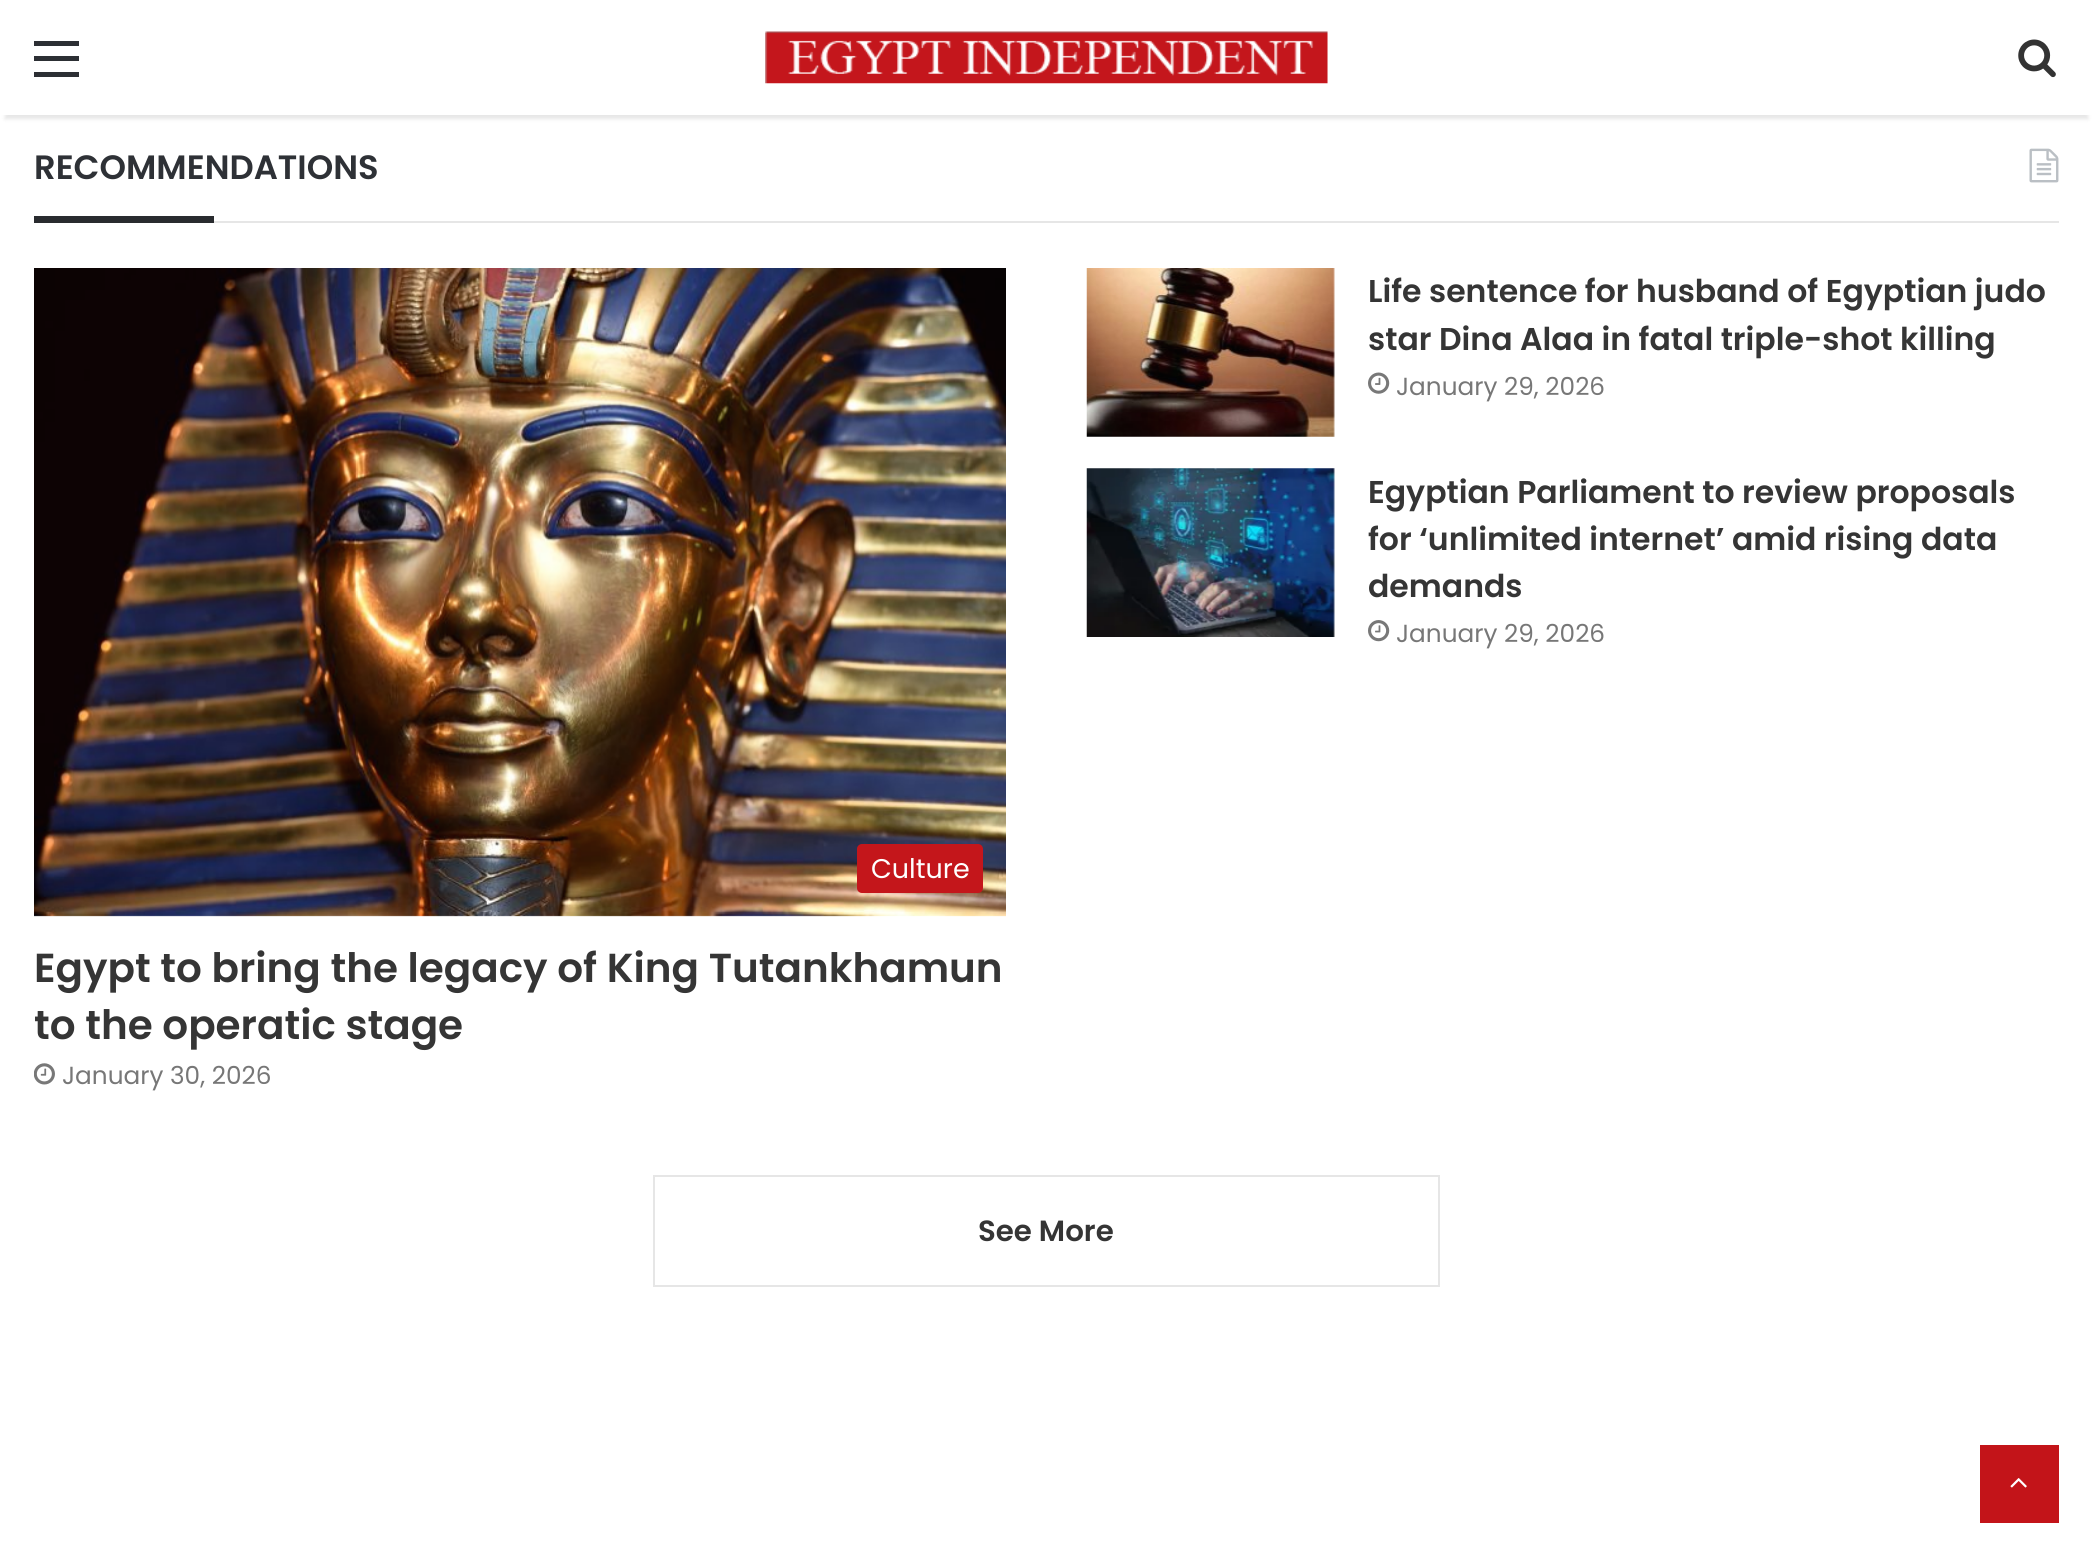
import math
import cairo

surface = cairo.ImageSurface(cairo.FORMAT_RGB24, 2092, 1556)
c = cairo.Context(surface)
options = cairo.FontOptions()
options.set_hint_metrics(cairo.HINT_METRICS_OFF)
options.set_hint_style(cairo.HINT_STYLE_NONE)
c.set_font_options(options)
c.set_miter_limit(4)
def C(code):
 c.set_source_rgb(*(v / 255 for v in bytes.fromhex(code[-6:])))
def F(family, size, italic, bold):
 c.select_font_face(family, cairo.FONT_SLANT_ITALIC if italic else cairo.FONT_SLANT_NORMAL, cairo.FONT_WEIGHT_BOLD if bold else cairo.FONT_WEIGHT_NORMAL)
 c.set_font_size(size)
def T(x, y, s):
 c.move_to(x, y)
 c.show_text(s)
def R(x, y, w, h):
 c.rectangle(x, y, w, h)
 c.fill()
def Q(x, y, w, h, r):
 c.new_sub_path()
 for i, (u, v) in enumerate([(x + w - r, y + h - r), (x + r, y + h - r), (x + r, y + r), (x + w - r, y + r)]):
  c.arc(u, v, r, i * math.pi / 2, (i + 1) * math.pi / 2)
 c.close_path()
def S(x, y, w, h, r, blur, alpha):
 c.push_group_with_content(cairo.CONTENT_ALPHA)
 c.set_operator(cairo.OPERATOR_SOURCE)
 for i in range(15, -16, -2):
  e = blur * i / 6
  if min(w, h) + 2 * e > 0:
   c.set_source_rgba(0, 0, 0, alpha * math.erfc((i - 1) / 8.5) / 2)
   Q(x - e, y - e, w + 2 * e, h + 2 * e, max(0, min(r + e + blur * .6, min(w, h) / 2 + e)))
   c.fill()
 c.mask(c.pop_group())
def I(path, x, y, w, h):
 c.save()
 c.set_source_surface(cairo.ImageSurface.create_from_png(path), x, y)
 c.rectangle(x, y, w, h)
 c.fill()
 c.restore()
C('ffffff')
c.paint()
c.save()
c.set_fill_rule(cairo.FILL_RULE_EVEN_ODD)
c.new_path()
c.move_to(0,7)
c.line_to(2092,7)
c.line_to(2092,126)
c.line_to(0,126)
c.close_path()
c.move_to(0,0)
c.line_to(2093,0)
c.line_to(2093,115)
c.line_to(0,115)
c.close_path()
c.clip()
C('000000')
S(5,14,2083,105,0,2,.1)
c.restore()
c.set_source_rgba(1,1,1,0.95)
R(5,114,2083,1)
C('2c2f34')
R(34,56,45,5)
R(34,41,45,5)
R(34,72,45,5)
I('1.png',765,31,563,53)
I('2.png',2018,39,38,39)
C('e6e6e6')
R(214,221,1845,2)
F('Poppins SemiBold',33.75,0,0)
C('2e3136')
T(34,179,'RECOMMENDATIONS')
I('3.png',2029,148,30,35)
C('292b2f')
R(34,216,180,7)
I('4.png',1086,268,249,169)
F('Poppins SemiBold',31.5,0,0)
C('353535')
T(1368,302,'Life sentence for husband of Egyptian judo')
T(1368,350,'star Dina Alaa in fatal triple-shot killing')
I('5.png',1368,372,22,22)
F('Poppins',24.75,0,0)
C('777777')
T(1396,395,'January 29, 2026')
I('6.png',1086,468,249,169)
F('Poppins SemiBold',31.5,0,0)
C('353535')
T(1368,503,'Egyptian Parliament to review proposals')
T(1368,550,'for ‘unlimited internet’ amid rising data')
T(1368,597,'demands')
I('7.png',1368,620,22,22)
F('Poppins',24.75,0,0)
C('777777')
T(1396,642,'January 29, 2026')
I('8.png',34,268,972,649)
C('c4161b')
Q(857,844,126,49,5)
c.fill()
F('Poppins',27,0,0)
C('ffffff')
T(871,878,'Culture')
F('Poppins SemiBold',40.5,0,0)
C('353535')
T(34,982,'Egypt to bring the legacy of King Tutankhamun')
T(34,1039,'to the operatic stage')
I('9.png',34,1063,21,22)
F('Poppins',24.75,0,0)
C('777777')
T(62,1084,'January 30, 2026')
c.rectangle(654,1176,785,110)
C('e6e6e6')
c.stroke()
F('Poppins SemiBold',29.25,0,0)
C('353535')
T(978,1241,'See More')
C('c31419')
R(1980,1445,79,78)
I('10.png',2010,1478,17,10)
surface.write_to_png('o.png')
